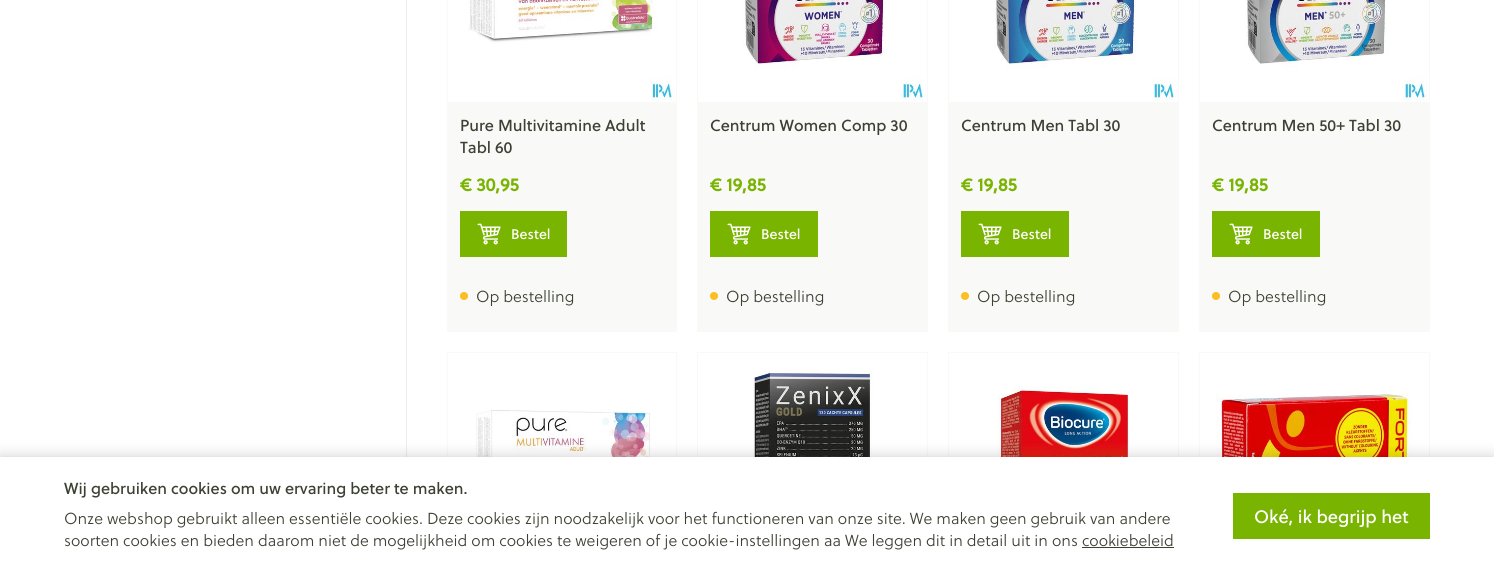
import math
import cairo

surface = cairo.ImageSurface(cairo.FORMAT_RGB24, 1494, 575)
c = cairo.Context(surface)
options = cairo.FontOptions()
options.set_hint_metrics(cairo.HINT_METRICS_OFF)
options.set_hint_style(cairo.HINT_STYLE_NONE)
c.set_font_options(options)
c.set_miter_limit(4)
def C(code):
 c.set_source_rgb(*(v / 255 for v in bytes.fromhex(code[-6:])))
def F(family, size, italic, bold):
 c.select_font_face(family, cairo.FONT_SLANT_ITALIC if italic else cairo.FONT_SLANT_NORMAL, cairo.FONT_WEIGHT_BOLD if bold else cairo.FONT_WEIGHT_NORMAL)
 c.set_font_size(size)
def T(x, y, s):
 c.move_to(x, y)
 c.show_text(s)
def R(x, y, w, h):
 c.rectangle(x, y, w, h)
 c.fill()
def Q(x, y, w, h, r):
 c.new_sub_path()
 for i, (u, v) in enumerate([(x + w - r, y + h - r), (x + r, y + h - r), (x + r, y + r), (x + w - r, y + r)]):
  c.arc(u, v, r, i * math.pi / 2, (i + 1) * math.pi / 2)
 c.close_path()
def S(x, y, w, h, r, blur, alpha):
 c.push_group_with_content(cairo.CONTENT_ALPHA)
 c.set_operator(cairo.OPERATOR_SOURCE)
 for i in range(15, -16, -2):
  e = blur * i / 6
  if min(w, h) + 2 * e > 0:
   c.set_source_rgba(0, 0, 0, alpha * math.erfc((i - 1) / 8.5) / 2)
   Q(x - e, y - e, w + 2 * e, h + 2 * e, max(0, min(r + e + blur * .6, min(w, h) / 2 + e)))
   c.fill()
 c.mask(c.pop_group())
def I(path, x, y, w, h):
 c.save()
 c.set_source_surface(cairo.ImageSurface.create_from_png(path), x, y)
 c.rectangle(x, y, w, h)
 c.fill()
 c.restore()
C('ffffff')
c.paint()
C('edeeeb')
R(406,0,1,457)
c.rectangle(447.5,-.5,229,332)
C('f9f9f8')
c.set_line_width(1)
c.stroke()
I('1.png',468,0,207,101)
R(448,102,228,229)
F('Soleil',16,0,0)
C('3d4133')
T(460,131,'Pure Multivitamine Adult')
T(460,153,'Tabl 60')
F('Soleil',18,0,1)
C('79b401')
T(460,191,'€ 30,95')
R(460,211,107,46)
I('2.png',477,223,24,22)
F('Soleil',14,0,0)
C('ffffff')
T(511,239,'Bestel')
C('fbbf24')
c.new_path()
c.arc(464,296,4,0,2 * math.pi)
c.fill()
F('Soleil Light',16,0,0)
C('3d4133')
T(476,302,'Op bestelling')
c.rectangle(697.5,-.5,230,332)
C('f9f9f8')
c.stroke()
I('3.png',743,0,183,101)
R(698,102,229,229)
F('Soleil',16,0,0)
C('3d4133')
T(710,131,'Centrum Women Comp 30')
F('Soleil',18,0,1)
C('79b401')
T(710,191,'€ 19,85')
R(710,211,108,46)
I('2.png',727,223,24,22)
F('Soleil',14,0,0)
C('ffffff')
T(761,239,'Bestel')
C('fbbf24')
c.new_path()
c.arc(714,296,4,0,2 * math.pi)
c.fill()
F('Soleil Light',16,0,0)
C('3d4133')
T(726,302,'Op bestelling')
c.rectangle(948.5,-.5,230,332)
C('f9f9f8')
c.stroke()
I('4.png',994,0,183,101)
R(949,102,229,229)
F('Soleil',16,0,0)
C('3d4133')
T(961,131,'Centrum Men Tabl 30')
F('Soleil',18,0,1)
C('79b401')
T(961,191,'€ 19,85')
R(961,211,108,46)
I('2.png',978,223,24,22)
F('Soleil',14,0,0)
C('ffffff')
T(1012,239,'Bestel')
C('fbbf24')
c.new_path()
c.arc(965,296,4,0,2 * math.pi)
c.fill()
F('Soleil Light',16,0,0)
C('3d4133')
T(977,302,'Op bestelling')
c.rectangle(1199.5,-.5,230,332)
C('f9f9f8')
c.stroke()
I('5.png',1245,0,183,101)
R(1200,102,229,229)
F('Soleil',16,0,0)
C('3d4133')
T(1212,131,'Centrum Men 50+ Tabl 30')
F('Soleil',18,0,1)
C('79b401')
T(1212,191,'€ 19,85')
R(1212,211,108,46)
I('2.png',1229,223,24,22)
F('Soleil',14,0,0)
C('ffffff')
T(1263,239,'Bestel')
C('fbbf24')
c.new_path()
c.arc(1216,296,4,0,2 * math.pi)
c.fill()
F('Soleil Light',16,0,0)
C('3d4133')
T(1228,302,'Op bestelling')
c.rectangle(447.5,352.5,229,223)
C('f9f9f8')
c.stroke()
I('6.png',474,410,201,47)
c.rectangle(697.5,352.5,230,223)
c.stroke()
I('7.png',753,369,173,88)
c.rectangle(948.5,352.5,230,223)
c.stroke()
I('8.png',997,386,180,71)
c.rectangle(1199.5,352.5,230,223)
c.stroke()
I('9.png',1216,394,212,63)
C('000000')
S(0,457,1494,118,0,7.5,.2)
C('ffffff')
R(0,457,1494,118)
F('Soleil',16,0,0)
C('3d4133')
T(64,494,'Wij gebruiken cookies om uw ervaring beter te maken.')
F('Soleil Light',16,0,0)
T(64,524,'Onze webshop gebruikt alleen essentiële cookies. Deze cookies zijn noodzakelijk voor het functioneren van onze site. We maken geen gebruik van andere')
T(64,546,'soorten cookies en bieden daarom niet de mogelijkheid om cookies te weigeren of je cookie-instellingen aa We leggen dit in detail uit in ons cookiebeleid')
R(1082,547,92,1)
C('79b401')
R(1233,493,197,46)
F('Soleil',18,0,0)
C('ffffff')
T(1254,523,'Oké, ik begrijp het')
surface.write_to_png('o.png')
